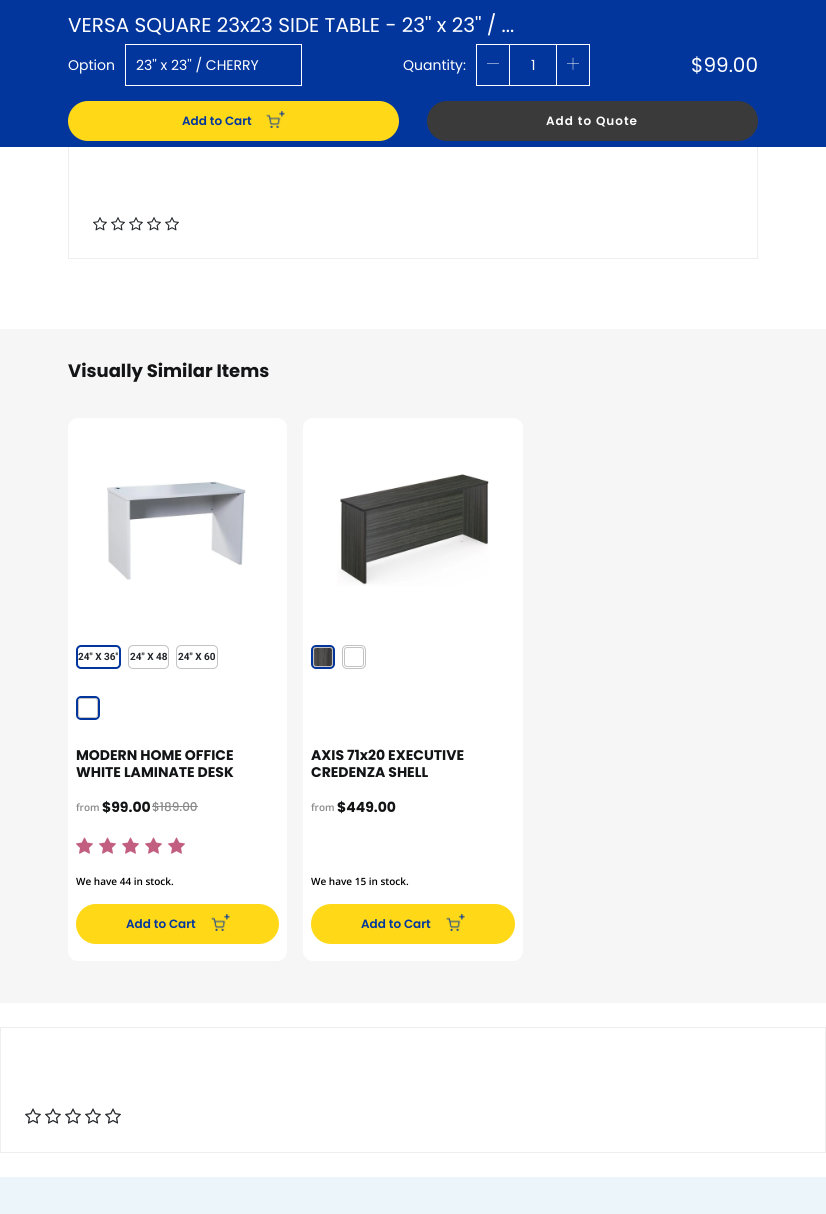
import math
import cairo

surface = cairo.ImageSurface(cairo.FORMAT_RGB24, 826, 1214)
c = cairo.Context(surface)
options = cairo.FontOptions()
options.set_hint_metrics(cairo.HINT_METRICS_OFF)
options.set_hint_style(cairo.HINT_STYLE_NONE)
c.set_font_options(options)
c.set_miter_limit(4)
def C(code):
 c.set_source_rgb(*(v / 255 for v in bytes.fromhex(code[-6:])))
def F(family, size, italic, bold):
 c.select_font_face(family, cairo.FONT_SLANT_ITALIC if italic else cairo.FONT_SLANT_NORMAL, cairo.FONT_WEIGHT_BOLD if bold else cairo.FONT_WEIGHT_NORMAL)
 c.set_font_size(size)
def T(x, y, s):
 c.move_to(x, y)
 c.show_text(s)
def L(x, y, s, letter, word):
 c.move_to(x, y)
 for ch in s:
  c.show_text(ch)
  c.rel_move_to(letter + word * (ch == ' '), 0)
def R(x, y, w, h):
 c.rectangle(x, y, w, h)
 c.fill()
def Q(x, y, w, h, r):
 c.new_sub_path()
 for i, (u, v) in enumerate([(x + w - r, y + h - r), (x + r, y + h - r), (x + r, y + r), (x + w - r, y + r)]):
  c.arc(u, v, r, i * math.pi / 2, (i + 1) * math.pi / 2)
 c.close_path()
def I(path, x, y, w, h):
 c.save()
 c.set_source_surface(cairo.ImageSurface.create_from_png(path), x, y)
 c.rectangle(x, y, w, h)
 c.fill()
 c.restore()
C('ffffff')
c.paint()
c.rectangle(68.5,136.5,689,122)
C('eeeeee')
c.set_line_width(1)
c.stroke()
C('02369d')
R(0,0,826,147)
F('poppins',20,0,0)
C('ffffff')
T(68,32,'VERSA SQUARE 23x23 SIDE TABLE - 23\'\' x 23\'\' / ...')
F('poppins',14,0,0)
T(68,70,'Option')
c.rectangle(125.5,44.5,176,41)
c.stroke()
T(136,70,'23\'\' x 23\'\' / CHERRY')
T(403,70,'Quantity:')
c.rectangle(476.5,44.5,113,41)
c.stroke()
c.new_path()
c.move_to(487,63.5)
c.line_to(499,63.5)
c.line_to(499,64)
c.line_to(487,64)
c.close_path()
c.fill()
R(556,45,1,40)
R(509,45,1,40)
T(531,70,'1')
I('1.png',567,57,12,13)
F('poppins',20,0,0)
T(691,72,'$99.00')
C('ffd918')
Q(68,101,331,40,20)
c.fill()
F('Poppins SemiBold',12,0,0)
C('02369d')
T(182,125,'Add to Cart')
I('2.png',266,110,19,19)
C('3a3a3a')
Q(427,101,331,40,20)
c.fill()
C('ffffff')
L(546,125,'Add to Quote',1,0)
I('3.png',93,217,14,14)
I('3.png',111,217,14,14)
I('3.png',129,217,14,14)
I('3.png',147,217,14,14)
I('3.png',165,217,14,14)
C('f6f6f6')
R(0,329,826,674)
F('Poppins',18,0,1)
C('131415')
T(68,377,'Visually Similar Items')
C('ffffff')
Q(68,418,219,543,10)
c.fill()
I('4.png',107,481,139,99)
Q(77,646,43,22,4)
C('02369d')
c.set_line_width(2)
c.stroke()
F('Roboto',10,0,1)
C('212529')
T(78,660,'24" X 36"')
Q(128.5,645.5,40,23,4.5)
C('c3c3c3')
c.set_line_width(1)
c.stroke()
C('212529')
T(130,660,'24" X 48')
Q(176.5,645.5,41,23,4.5)
C('c3c3c3')
c.stroke()
C('212529')
T(178,660,'24" X 60')
Q(77,697,22,22,4)
C('02369d')
c.set_line_width(2)
c.stroke()
Q(78.5,698.5,19,19,2.5)
C('c3c3c3')
c.set_line_width(1)
c.stroke()
F('Poppins',14,0,1)
C('131415')
T(76,760,'MODERN HOME OFFICE')
T(76,777,'WHITE LAMINATE DESK')
F('Open Sans SemiBold',10,0,0)
C('89898a')
T(76,811,'from')
F('Poppins',14,0,1)
C('131415')
T(102,812,'$99.00')
F('Poppins Medium',12,0,0)
C('89898a')
T(152,811,'$189.00')
R(152,806,46,1)
I('5.png',76,837,17,17)
I('5.png',99,837,17,17)
I('5.png',122,837,17,17)
I('5.png',145,837,17,17)
I('5.png',168,837,17,17)
F('Open Sans SemiBold',10,0,0)
C('000000')
T(76,885,'We have 44 in stock.')
C('ffd918')
Q(76,904,203,40,20)
c.fill()
F('Poppins SemiBold',12,0,0)
C('02369d')
T(126,928,'Add to Cart')
I('6.png',211,914,19,17)
C('ffffff')
Q(303,418,220,543,10)
c.fill()
I('7.png',337,474,152,112)
Q(312,646,22,22,4)
C('02369d')
c.set_line_width(2)
c.stroke()
I('8.png',313,647,20,20)
Q(313.5,647.5,19,19,2.5)
C('c3c3c3')
c.set_line_width(1)
c.stroke()
Q(342.5,645.5,23,23,4.5)
c.stroke()
Q(344.5,647.5,19,19,2.5)
c.stroke()
F('Poppins',14,0,1)
C('131415')
T(311,760,'AXIS 71x20 EXECUTIVE')
T(311,777,'CREDENZA SHELL')
F('Open Sans SemiBold',10,0,0)
C('89898a')
T(311,811,'from')
F('Poppins',14,0,1)
C('131415')
T(337,812,'$449.00')
F('Open Sans SemiBold',10,0,0)
C('000000')
T(311,885,'We have 15 in stock.')
C('ffd918')
Q(311,904,204,40,20)
c.fill()
F('Poppins SemiBold',12,0,0)
C('02369d')
T(361,928,'Add to Cart')
I('6.png',446,914,19,17)
c.rectangle(.5,1027.5,825,125)
C('eeeeee')
c.stroke()
I('9.png',25,1108,16,16)
I('9.png',45,1108,16,16)
I('9.png',65,1108,16,16)
I('9.png',85,1108,16,16)
I('9.png',105,1108,16,16)
C('ecf5fa')
R(0,1177,826,37)
surface.write_to_png('o.png')
